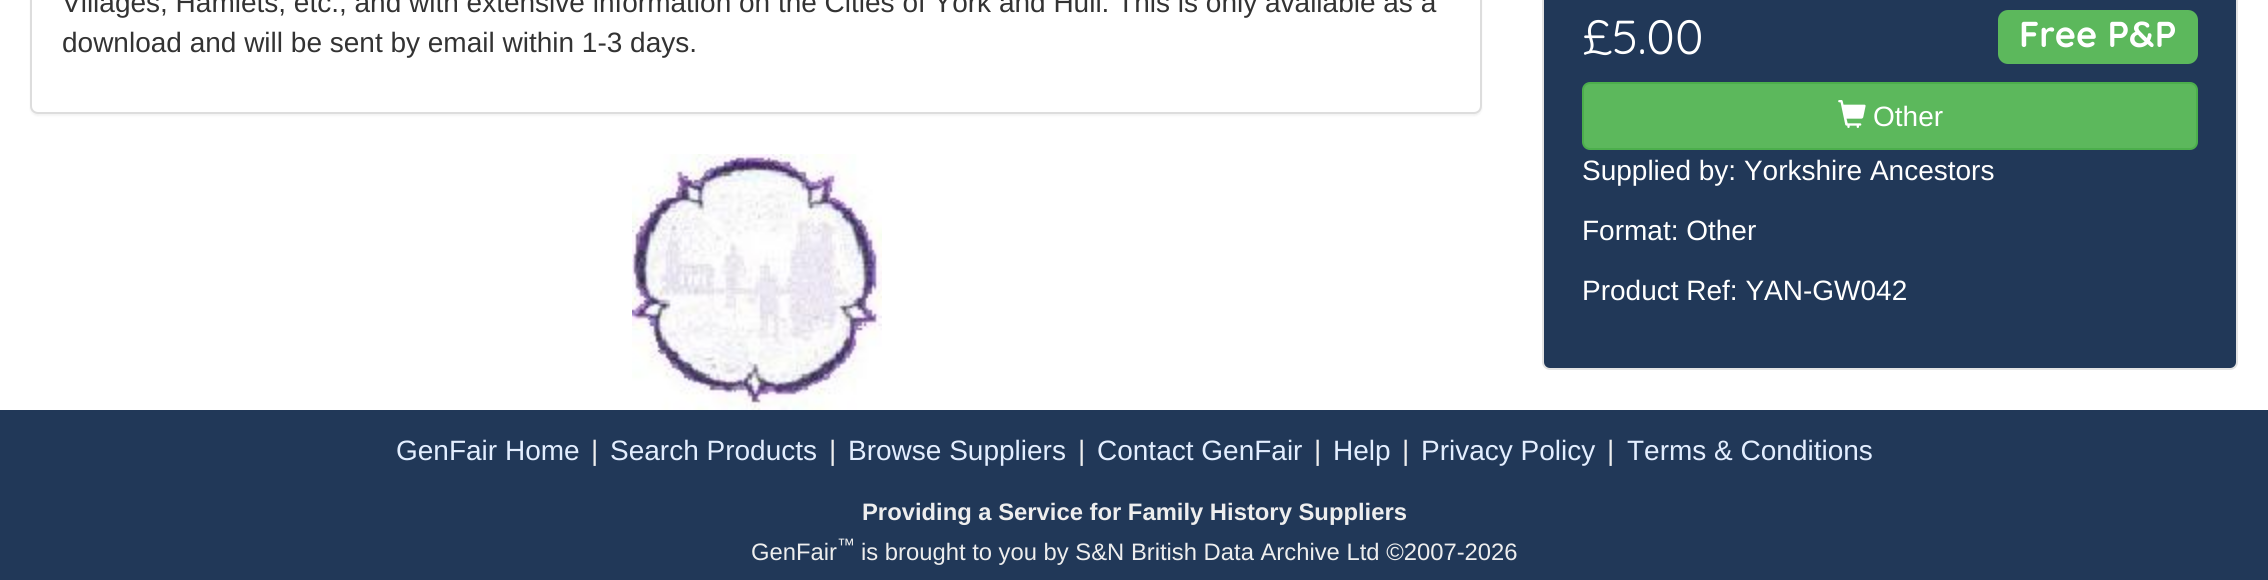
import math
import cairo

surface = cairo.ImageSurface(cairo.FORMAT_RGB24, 2268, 580)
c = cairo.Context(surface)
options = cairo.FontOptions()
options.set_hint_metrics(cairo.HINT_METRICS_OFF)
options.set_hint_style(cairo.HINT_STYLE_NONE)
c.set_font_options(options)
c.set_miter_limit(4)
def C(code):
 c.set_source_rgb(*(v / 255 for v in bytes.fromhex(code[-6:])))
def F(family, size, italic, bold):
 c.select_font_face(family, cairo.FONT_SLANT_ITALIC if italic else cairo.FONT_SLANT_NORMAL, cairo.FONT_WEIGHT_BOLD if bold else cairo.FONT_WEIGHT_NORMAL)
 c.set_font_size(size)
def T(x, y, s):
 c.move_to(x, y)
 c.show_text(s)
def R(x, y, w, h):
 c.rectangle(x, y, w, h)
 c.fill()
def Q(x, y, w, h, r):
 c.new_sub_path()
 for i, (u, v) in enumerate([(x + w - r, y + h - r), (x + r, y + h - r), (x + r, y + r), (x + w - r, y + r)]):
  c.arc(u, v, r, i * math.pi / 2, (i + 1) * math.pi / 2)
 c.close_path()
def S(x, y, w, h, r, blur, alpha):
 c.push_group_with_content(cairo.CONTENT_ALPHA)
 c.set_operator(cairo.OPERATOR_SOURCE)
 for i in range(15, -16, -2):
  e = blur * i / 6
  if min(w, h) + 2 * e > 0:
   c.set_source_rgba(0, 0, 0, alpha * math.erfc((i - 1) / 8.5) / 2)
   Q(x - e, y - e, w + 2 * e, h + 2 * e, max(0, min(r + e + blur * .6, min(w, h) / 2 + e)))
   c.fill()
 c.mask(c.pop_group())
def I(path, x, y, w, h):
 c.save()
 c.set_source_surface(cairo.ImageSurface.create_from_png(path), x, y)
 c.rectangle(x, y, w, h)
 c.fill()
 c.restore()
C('ffffff')
c.paint()
C('000000')
S(30,-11,1452,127,8,1,.05)
C('ffffff')
Q(31,-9,1450,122,7)
c.fill_preserve()
C('dddddd')
c.stroke()
F('Liberation Sans',28,0,0)
C('333333')
T(62,12,'Villages, Hamlets, etc., and with extensive information on the Cities of York and Hull. This is only available as a')
T(62,52,'download and will be sent by email within 1-3 days.')
I('1.png',632,154,250,256)
C('213858')
Q(1543,-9,694,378,7)
c.fill_preserve()
C('e3e3e3')
c.stroke()
F('Quicksand',48,0,0)
C('ffffff')
T(1582,54,'£5.00')
C('5cb85c')
Q(1998,10,200,54,10)
c.fill()
F('Quicksand',36,0,1)
C('ffffff')
T(2019,47,'Free P&P')
C('5cb85c')
Q(1583,83,614,66,7)
c.fill_preserve()
C('4cae4c')
c.stroke()
I('2.png',1838,100,28,28)
F('Liberation Sans',28,0,0)
C('ffffff')
T(1873,126,'Other')
T(1582,180,'Supplied by: Yorkshire Ancestors')
T(1582,240,'Format: Other')
T(1582,300,'Product Ref: YAN-GW042')
C('213858')
R(0,410,2268,170)
C('e3eeff')
T(396,460,'GenFair Home')
C('eeeeee')
T(591,460,'|')
C('e3eeff')
T(610,460,'Search Products')
C('eeeeee')
T(829,460,'|')
C('e3eeff')
T(848,460,'Browse Suppliers')
C('eeeeee')
T(1078,460,'|')
C('e3eeff')
T(1097,460,'Contact GenFair')
C('eeeeee')
T(1314,460,'|')
C('e3eeff')
T(1333,460,'Help')
C('eeeeee')
T(1402,460,'|')
C('e3eeff')
T(1421,460,'Privacy Policy')
C('eeeeee')
T(1607,460,'|')
C('e3eeff')
T(1627,460,'Terms & Conditions')
F('Liberation Sans',23.8,0,1)
C('eeeeee')
T(862,520,'Providing a Service for Family History Suppliers')
F('Liberation Sans',23.8,0,0)
T(751,560,'GenFair')
F('Liberation Sans',18,0,0)
T(837,551,'™')
F('Liberation Sans',23.8,0,0)
T(861,560,'is brought to you by S&N British Data Archive Ltd ©2007-2026')
surface.write_to_png('o.png')
